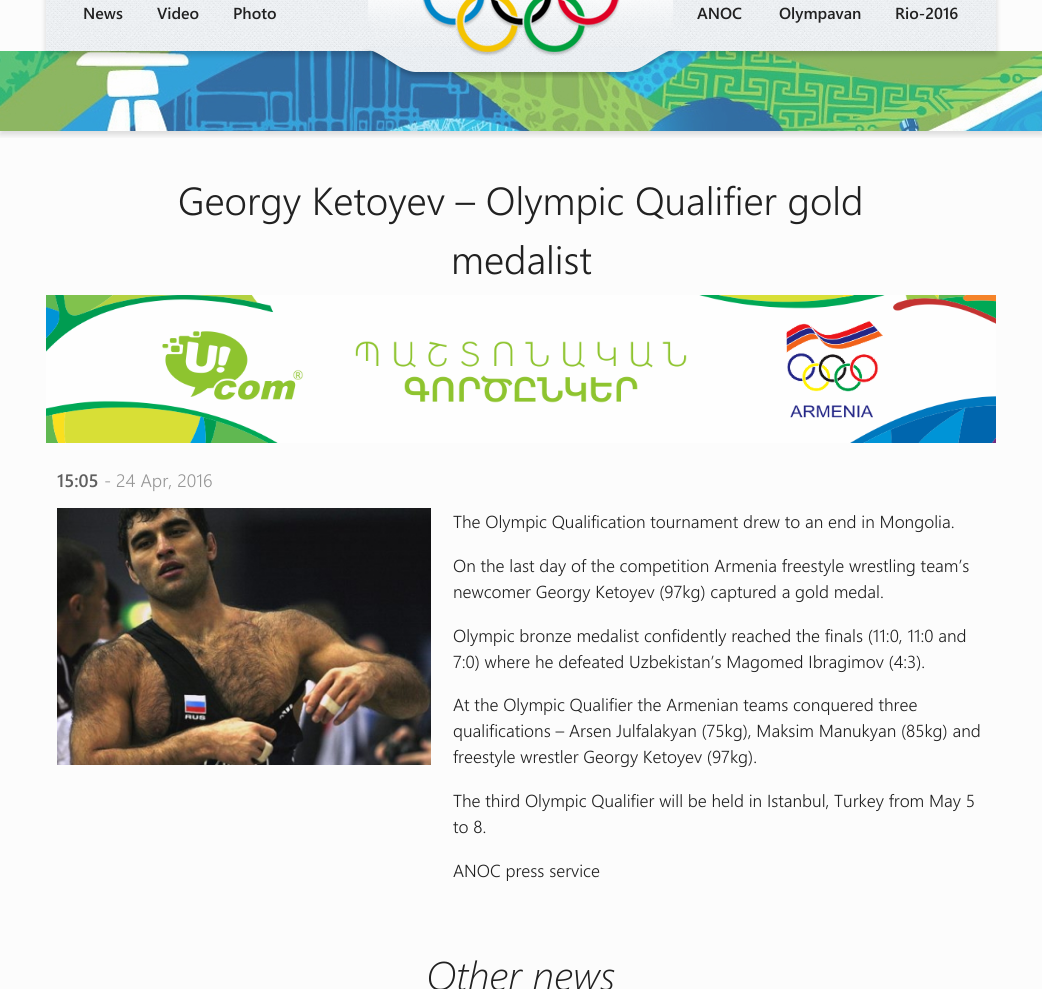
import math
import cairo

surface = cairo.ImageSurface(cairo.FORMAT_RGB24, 1042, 989)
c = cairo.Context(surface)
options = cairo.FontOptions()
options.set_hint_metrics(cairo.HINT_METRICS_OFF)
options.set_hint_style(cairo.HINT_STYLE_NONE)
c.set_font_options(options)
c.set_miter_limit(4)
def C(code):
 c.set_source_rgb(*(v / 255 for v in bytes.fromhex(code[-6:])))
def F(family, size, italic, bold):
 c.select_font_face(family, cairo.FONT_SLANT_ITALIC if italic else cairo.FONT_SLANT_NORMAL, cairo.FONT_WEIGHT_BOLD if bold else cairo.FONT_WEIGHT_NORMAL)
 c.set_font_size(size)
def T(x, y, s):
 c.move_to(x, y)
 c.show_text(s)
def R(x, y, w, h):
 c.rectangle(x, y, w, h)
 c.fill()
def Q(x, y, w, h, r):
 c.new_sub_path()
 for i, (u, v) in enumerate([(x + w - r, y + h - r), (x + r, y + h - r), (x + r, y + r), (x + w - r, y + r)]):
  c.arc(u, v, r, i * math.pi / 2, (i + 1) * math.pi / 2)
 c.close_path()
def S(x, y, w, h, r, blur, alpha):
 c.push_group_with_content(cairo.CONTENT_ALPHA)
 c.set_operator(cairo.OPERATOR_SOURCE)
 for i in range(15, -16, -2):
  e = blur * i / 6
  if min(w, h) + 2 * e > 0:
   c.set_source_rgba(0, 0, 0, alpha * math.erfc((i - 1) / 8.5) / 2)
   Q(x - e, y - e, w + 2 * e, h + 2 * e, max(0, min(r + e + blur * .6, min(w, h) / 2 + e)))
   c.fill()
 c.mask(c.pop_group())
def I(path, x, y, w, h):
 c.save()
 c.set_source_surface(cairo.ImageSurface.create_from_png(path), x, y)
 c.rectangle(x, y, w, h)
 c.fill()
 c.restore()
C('fcfcfc')
c.paint()
c.save()
c.rectangle(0,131,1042,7)
c.clip()
C('323232')
S(0,55,1042,80,0,3,.16)
c.restore()
I('4.png',0,51,1042,80)
C('000000')
S(46,-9,950,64,0,3,.16)
C('f0f4f8')
R(46,0,950,51)
I('3.png',46,0,950,51)
I('1.png',362,0,319,78)
I('2.png',422,0,198,56)
F('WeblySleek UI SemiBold',16,0,0)
C('212121')
T(83,19,'News')
T(157,19,'Video')
T(233,19,'Photo')
T(697,19,'ANOC')
T(779,19,'Olympavan')
T(895,19,'Rio-2016')
F('WeblySleek UI Light',39.1,0,0)
T(178,215,'Georgy Ketoyev – Olympic Qualifier gold')
T(451,274,'medalist')
I('5.png',46,295,950,148)
F('WeblySleek UI SemiBold',18,0,0)
C('5f5f5f')
T(57,487,'15:05')
F('WeblySleek UI Light',18,0,0)
C('969696')
T(104,487,'- 24 Apr, 2016')
I('6.png',57,508,374,257)
F('WeblySleek UI Light',17.4,0,0)
C('212121')
T(453,528,'The Olympic Qualification tournament drew to an end in Mongolia.')
T(453,572,'On the last day of the competition Armenia freestyle wrestling team’s')
T(453,598,'newcomer Georgy Ketoyev (97kg) captured a gold medal.')
T(453,642,'Olympic bronze medalist confidently reached the finals (11:0, 11:0 and')
T(453,668,'7:0) where he defeated Uzbekistan’s Magomed Ibragimov (4:3).')
T(453,711,'At the Olympic Qualifier the Armenian teams conquered three')
T(453,737,'qualifications – Arsen Julfalakyan (75kg), Maksim Manukyan (85kg) and')
T(453,763,'freestyle wrestler Georgy Ketoyev (97kg).')
T(453,807,'The third Olympic Qualifier will be held in Istanbul, Turkey from May 5')
T(453,833,'to 8.')
T(453,877,'ANOC press service')
F('WeblySleek UI Light',40,1,0)
T(426,990,'Other news')
surface.write_to_png('o.png')
